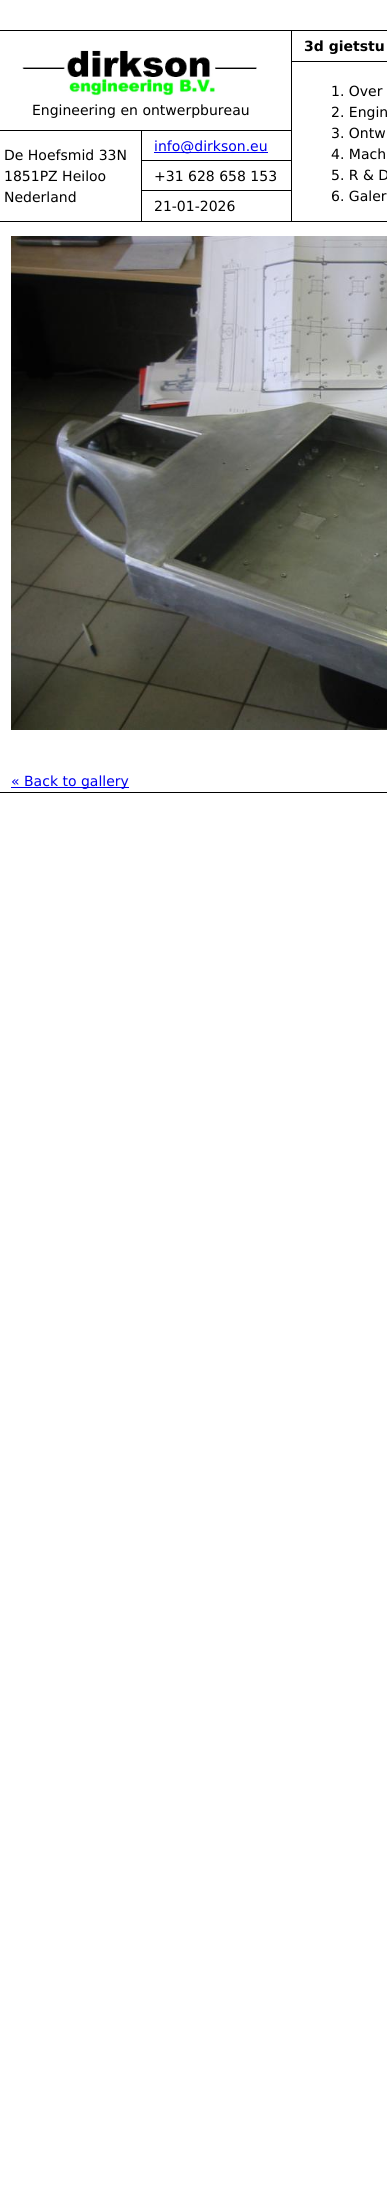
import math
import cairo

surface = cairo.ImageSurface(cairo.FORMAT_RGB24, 387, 2199)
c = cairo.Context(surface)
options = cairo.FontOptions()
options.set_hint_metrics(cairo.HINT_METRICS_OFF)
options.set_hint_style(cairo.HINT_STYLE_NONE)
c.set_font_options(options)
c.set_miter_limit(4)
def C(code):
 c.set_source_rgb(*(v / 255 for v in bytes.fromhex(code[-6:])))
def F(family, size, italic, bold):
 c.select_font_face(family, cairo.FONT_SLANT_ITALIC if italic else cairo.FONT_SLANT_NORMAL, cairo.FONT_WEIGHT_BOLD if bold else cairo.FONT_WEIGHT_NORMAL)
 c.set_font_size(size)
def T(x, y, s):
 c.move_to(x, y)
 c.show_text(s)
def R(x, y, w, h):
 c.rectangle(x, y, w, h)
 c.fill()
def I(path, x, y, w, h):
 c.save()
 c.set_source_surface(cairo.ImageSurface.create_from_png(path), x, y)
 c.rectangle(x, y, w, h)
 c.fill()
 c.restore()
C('ffffff')
c.paint()
c.rectangle(-.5,30.5,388,762)
C('000000')
c.set_line_width(1)
c.stroke()
R(291,31,1,191)
R(0,221,387,1)
I('1.png',22,50,235,46)
F('DejaVu Sans',14,0,0)
T(32,115,'Engineering en ontwerpbureau')
R(0,130,142,1)
R(141,130,1,91)
R(141,130,150,1)
C('0000ee')
R(154,152,114,1)
T(154,151,'info@dirkson.eu')
C('000000')
T(4,160,'De Hoefsmid 33N')
T(4,181,'1851PZ Heiloo')
T(4,202,'Nederland')
R(141,160,150,1)
T(154,181,'+31 628 658 153')
R(141,190,150,1)
T(154,211,'21-01-2026')
R(291,61,96,1)
F('DejaVu Sans',14,0,1)
T(304,51,'3d gietstu')
F('DejaVu Sans',14,0,0)
T(331,96,'1. Over')
T(331,117,'2. Engin')
T(331,138,'3. Ontw')
T(331,159,'4. Mach')
T(331,180,'5. R & D')
T(331,201,'6. Galer')
I('2.png',11,236,376,494)
C('0000ee')
R(11,787,118,1)
T(11,786,'« Back to gallery')
surface.write_to_png('o.png')
